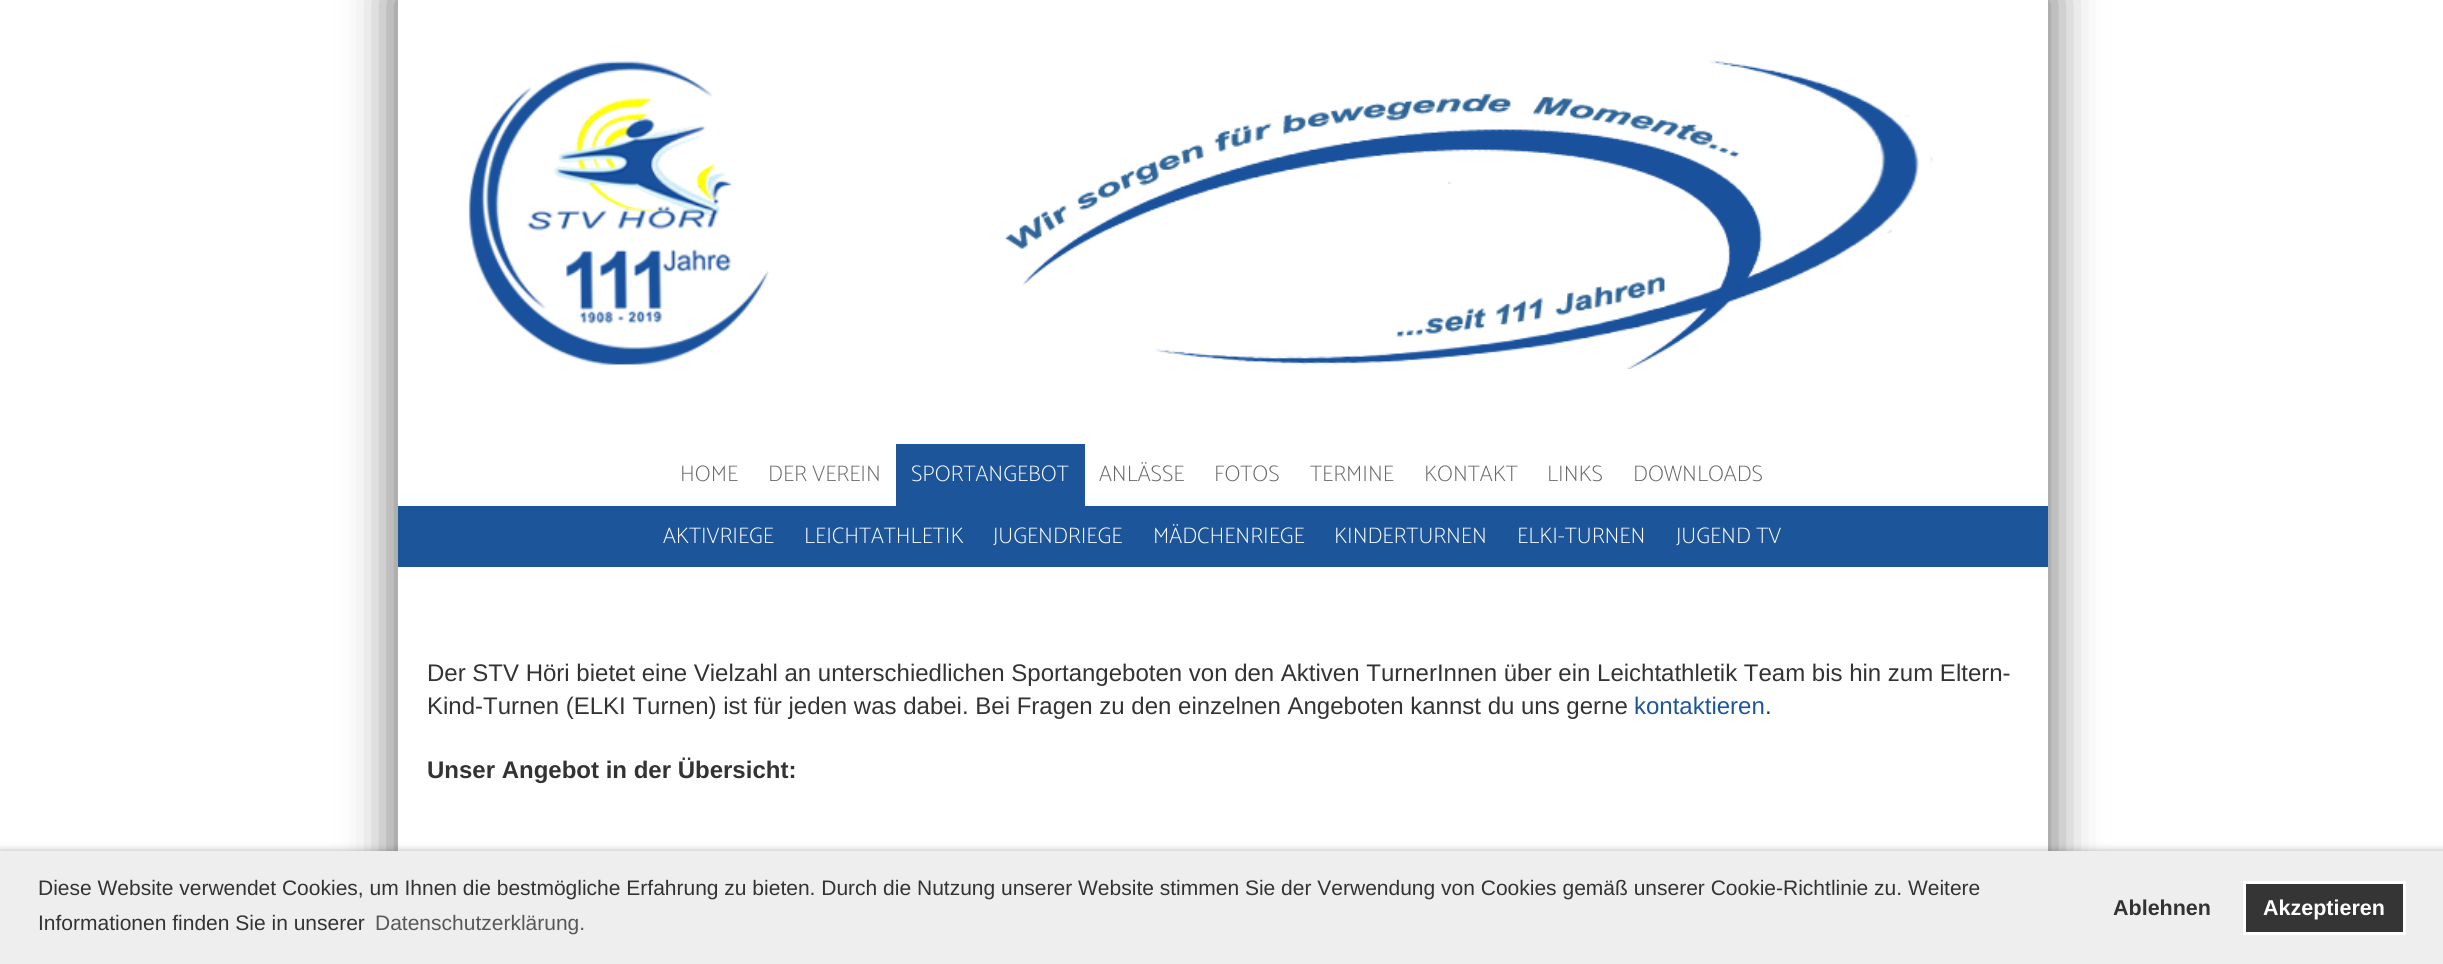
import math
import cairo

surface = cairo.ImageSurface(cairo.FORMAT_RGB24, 2443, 964)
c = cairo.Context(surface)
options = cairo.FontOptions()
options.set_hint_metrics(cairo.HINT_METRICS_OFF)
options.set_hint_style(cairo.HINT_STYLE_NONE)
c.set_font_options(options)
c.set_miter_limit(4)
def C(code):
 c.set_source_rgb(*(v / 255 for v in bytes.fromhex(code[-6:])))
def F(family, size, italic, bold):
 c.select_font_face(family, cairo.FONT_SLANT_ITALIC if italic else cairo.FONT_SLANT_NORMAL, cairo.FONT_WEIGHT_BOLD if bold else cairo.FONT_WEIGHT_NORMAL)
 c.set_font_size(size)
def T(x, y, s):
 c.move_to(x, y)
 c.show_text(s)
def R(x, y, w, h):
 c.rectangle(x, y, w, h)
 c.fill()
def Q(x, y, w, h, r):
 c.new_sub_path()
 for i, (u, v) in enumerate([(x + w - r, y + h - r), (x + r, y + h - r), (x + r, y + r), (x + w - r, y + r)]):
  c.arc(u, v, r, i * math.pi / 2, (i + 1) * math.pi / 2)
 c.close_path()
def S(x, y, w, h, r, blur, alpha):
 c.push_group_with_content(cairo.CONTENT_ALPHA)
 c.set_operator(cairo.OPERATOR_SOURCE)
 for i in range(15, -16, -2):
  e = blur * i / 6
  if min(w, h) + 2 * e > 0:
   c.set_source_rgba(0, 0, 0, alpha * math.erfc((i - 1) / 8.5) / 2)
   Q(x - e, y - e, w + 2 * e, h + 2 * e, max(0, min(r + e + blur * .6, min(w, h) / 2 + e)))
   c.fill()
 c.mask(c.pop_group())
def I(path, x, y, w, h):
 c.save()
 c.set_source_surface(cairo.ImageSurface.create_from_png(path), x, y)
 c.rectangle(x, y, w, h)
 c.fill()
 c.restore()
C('ffffff')
c.paint()
c.save()
c.set_fill_rule(cairo.FILL_RULE_EVEN_ODD)
c.new_path()
c.move_to(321,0)
c.line_to(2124,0)
c.line_to(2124,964)
c.line_to(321,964)
c.close_path()
c.move_to(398,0)
c.line_to(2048,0)
c.line_to(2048,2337)
c.line_to(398,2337)
c.close_path()
c.clip()
C('000000')
S(390,-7,1665,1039,0,22.5,.5)
c.restore()
I('1.png',468,60,1465,309)
C('ffffff')
R(2047,444,1,62)
F('Catamaran Thin',22.5,0,0)
C('686868')
T(680,481,'HOME')
T(768,481,'DER VEREIN')
C('1d559b')
R(896,444,189,62)
C('ffffff')
T(911,481,'SPORTANGEBOT')
C('686868')
T(1099,481,'ANLÄSSE')
T(1214,481,'FOTOS')
T(1310,481,'TERMINE')
T(1424,481,'KONTAKT')
T(1547,481,'LINKS')
T(1633,481,'DOWNLOADS')
C('1d559b')
R(398,506,1650,61)
C('ffffff')
T(663,543,'AKTIVRIEGE')
T(804,543,'LEICHTATHLETIK')
T(993,543,'JUGENDRIEGE')
T(1153,543,'MÄDCHENRIEGE')
T(1334,543,'KINDERTURNEN')
T(1517,543,'ELKI-TURNEN')
T(1676,543,'JUGEND TV')
F('Liberation Sans',24,0,0)
C('333333')
T(427,681,'Der STV Höri bietet eine Vielzahl an unterschiedlichen Sportangeboten von den Aktiven TurnerInnen über ein Leichtathletik Team bis hin zum Eltern-')
T(427,714,'Kind-Turnen (ELKI Turnen) ist für jeden was dabei. Bei Fragen zu den einzelnen Angeboten kannst du uns gerne')
C('1d559b')
T(1634,714,'kontaktieren')
C('333333')
T(1765,714,'.')
F('Liberation Sans',24,0,1)
T(427,778,'Unser Angebot in der Übersicht:')
C('000000')
S(0,851,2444,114,0,4,.3)
C('eeeeee')
R(0,851,2443,113)
F('Liberation Sans',21,0,0)
C('333333')
T(38,895,'Diese Website verwendet Cookies, um Ihnen die bestmögliche Erfahrung zu bieten. Durch die Nutzung unserer Website stimmen Sie der Verwendung von Cookies gemäß unserer Cookie-Richtlinie zu. Weitere')
T(38,930,'Informationen finden Sie in unserer')
C('585858')
T(375,930,'Datenschutzerklärung.')
F('Liberation Sans',21.5,0,1)
C('333333')
T(2113,915,'Ablehnen')
C('353535')
c.rectangle(2244.5,882.5,160,51)
c.fill_preserve()
C('ffffff')
c.set_line_width(3)
c.stroke()
T(2263,915,'Akzeptieren')
surface.write_to_png('o.png')
